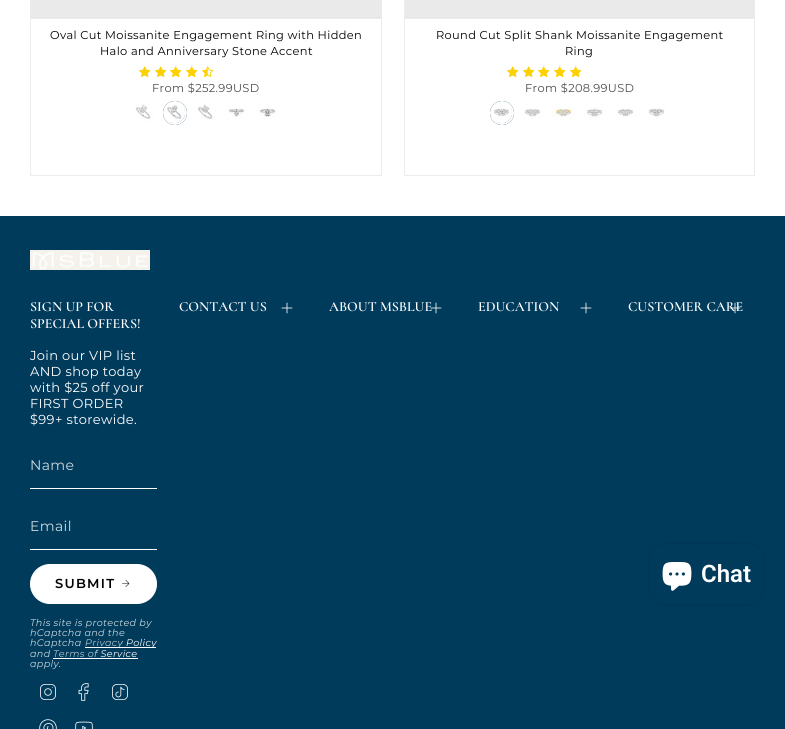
import math
import cairo

surface = cairo.ImageSurface(cairo.FORMAT_RGB24, 785, 729)
c = cairo.Context(surface)
options = cairo.FontOptions()
options.set_hint_metrics(cairo.HINT_METRICS_OFF)
options.set_hint_style(cairo.HINT_STYLE_NONE)
c.set_font_options(options)
c.set_miter_limit(4)
def C(code):
 c.set_source_rgb(*(v / 255 for v in bytes.fromhex(code[-6:])))
def F(family, size, italic, bold):
 c.select_font_face(family, cairo.FONT_SLANT_ITALIC if italic else cairo.FONT_SLANT_NORMAL, cairo.FONT_WEIGHT_BOLD if bold else cairo.FONT_WEIGHT_NORMAL)
 c.set_font_size(size)
def T(x, y, s):
 c.move_to(x, y)
 c.show_text(s)
def L(x, y, s, letter, word):
 c.move_to(x, y)
 for ch in s:
  c.show_text(ch)
  c.rel_move_to(letter + word * (ch == ' '), 0)
def R(x, y, w, h):
 c.rectangle(x, y, w, h)
 c.fill()
def Q(x, y, w, h, r):
 c.new_sub_path()
 for i, (u, v) in enumerate([(x + w - r, y + h - r), (x + r, y + h - r), (x + r, y + r), (x + w - r, y + r)]):
  c.arc(u, v, r, i * math.pi / 2, (i + 1) * math.pi / 2)
 c.close_path()
def S(x, y, w, h, r, blur, alpha):
 c.push_group_with_content(cairo.CONTENT_ALPHA)
 c.set_operator(cairo.OPERATOR_SOURCE)
 for i in range(15, -16, -2):
  e = blur * i / 6
  if min(w, h) + 2 * e > 0:
   c.set_source_rgba(0, 0, 0, alpha * math.erfc((i - 1) / 8.5) / 2)
   Q(x - e, y - e, w + 2 * e, h + 2 * e, max(0, min(r + e + blur * .6, min(w, h) / 2 + e)))
   c.fill()
 c.mask(c.pop_group())
def I(path, x, y, w, h):
 c.save()
 c.set_source_surface(cairo.ImageSurface.create_from_png(path), x, y)
 c.rectangle(x, y, w, h)
 c.fill()
 c.restore()
C('ffffff')
c.paint()
c.rectangle(30.5,-.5,351,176)
C('ececec')
c.set_line_width(1)
c.stroke()
C('e5e5e5')
R(31,17,350,1)
C('eaeaea')
R(31,0,350,17)
C('ececec')
R(31,18,350,1)
F('Montserrat Thin',11.4,0,0)
C('000000')
L(50,39,'Oval Cut Moissanite Engagement Ring with Hidden',.35,0)
L(100,55,'Halo and Anniversary Stone Accent',.35,0)
I('1.png',139,66,12,12)
I('1.png',155,66,12,12)
I('1.png',170,66,12,12)
I('1.png',186,66,12,12)
I('2.png',202,66,12,12)
C('4d4d4d')
L(152,92,'From $252.99USD',.35,0)
C('f7f9fa')
c.new_path()
c.arc(143.5,112.5,10.5,0,2 * math.pi)
c.fill()
I('3.png',133,102,21,21)
c.arc(175,113,11,0,2 * math.pi)
C('003b5c')
c.set_line_width(2)
c.stroke()
c.arc(175,113,11,0,2 * math.pi)
C('ffffff')
c.stroke()
C('f7f9fa')
c.arc(174.5,112.5,10.5,0,2 * math.pi)
c.fill()
I('4.png',164,102,21,21)
c.arc(205.5,112.5,10.5,0,2 * math.pi)
c.fill()
I('5.png',195,102,21,21)
c.arc(236.5,112.5,10.5,0,2 * math.pi)
c.fill()
I('6.png',226,102,21,21)
c.arc(267.5,112.5,10.5,0,2 * math.pi)
c.fill()
I('7.png',257,102,21,21)
c.rectangle(404.5,-.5,350,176)
C('ececec')
c.set_line_width(1)
c.stroke()
C('e5e5e5')
R(405,17,349,1)
C('eaeaea')
R(405,0,349,17)
C('ececec')
R(405,18,349,1)
C('000000')
L(436,39,'Round Cut Split Shank Moissanite Engagement',.35,0)
L(565,55,'Ring',.35,0)
I('1.png',507,66,12,12)
I('1.png',523,66,12,12)
I('1.png',538,66,12,12)
I('1.png',554,66,12,12)
I('1.png',570,66,12,12)
C('4d4d4d')
L(525,92,'From $208.99USD',.35,0)
c.new_path()
c.arc(502,113,11,0,2 * math.pi)
C('003b5c')
c.set_line_width(2)
c.stroke()
c.arc(502,113,11,0,2 * math.pi)
C('ffffff')
c.stroke()
C('f7f9fa')
c.arc(501.5,112.5,10.5,0,2 * math.pi)
c.fill()
I('8.png',491,102,21,21)
c.arc(532.5,112.5,10.5,0,2 * math.pi)
c.fill()
I('9.png',522,102,21,21)
c.arc(563.5,112.5,10.5,0,2 * math.pi)
c.fill()
I('10.png',553,102,21,21)
c.arc(594.5,112.5,10.5,0,2 * math.pi)
c.fill()
I('11.png',584,102,21,21)
c.arc(625.5,112.5,10.5,0,2 * math.pi)
c.fill()
I('12.png',615,102,21,21)
c.arc(656.5,112.5,10.5,0,2 * math.pi)
c.fill()
I('13.png',646,102,21,21)
C('003b5c')
R(0,216,785,513)
C('f5f2ec')
R(30,250,120,20)
I('14.png',32,252,116,17)
F('Cormorant SemiBold',14,0,0)
C('ffffff')
T(30,311,'SIGN UP FOR')
T(30,328,'SPECIAL OFFERS!')
F('Montserrat Thin',13,0,0)
L(30,360,'Join our VIP list',.35,0)
L(30,376,'AND shop today',.35,0)
L(30,392,'with $25 off your',.35,0)
L(30,408,'FIRST ORDER',.35,0)
L(30,424,'$99+ storewide.',.35,0)
R(30,488,127,1)
F('Montserrat Thin',14,0,0)
C('ccd8de')
L(30,470,'Name',.35,0)
C('ffffff')
R(30,549,127,1)
C('ccd8de')
L(30,531,'Email',.35,0)
C('ffffff')
Q(30.5,564.5,126,39,19.5)
c.fill_preserve()
c.set_line_width(1)
c.stroke()
F('Montserrat SemiBold',13,0,0)
C('000000')
L(55,588,'SUBMIT',1.25,0)
I('15.png',122,580,8,7)
F('Montserrat',9.6,1,0)
C('ccd8de')
L(30,626,'This site is protected by',.35,0)
L(30,636,'hCaptcha and the',.35,0)
L(30,646,'hCaptcha',.35,0)
gradient = cairo.LinearGradient(85,643,156,643)
gradient.add_color_stop_rgba(0,0.702,0.769,0.808,1)
gradient.add_color_stop_rgba(.5,0.702,0.769,0.808,1)
gradient.add_color_stop_rgba(.5,1,1,1,1)
gradient.add_color_stop_rgba(1,1,1,1,1)
c.set_source(gradient)
L(85,646,'Privacy Policy',.35,0)
C('ffffff')
R(85,647,71,1)
C('ccd8de')
L(30,657,'and',.35,0)
gradient = cairo.LinearGradient(53,654,138,654)
gradient.add_color_stop_rgba(0,0.702,0.769,0.808,1)
gradient.add_color_stop_rgba(.5,0.702,0.769,0.808,1)
gradient.add_color_stop_rgba(.5,1,1,1,1)
gradient.add_color_stop_rgba(1,1,1,1,1)
c.set_source(gradient)
L(53,657,'Terms of Service',.35,0)
C('ffffff')
R(53,658,85,1)
C('ccd8de')
L(30,667,'apply.',.35,0)
I('16.png',40,684,16,16)
I('17.png',78,683,11,18)
I('18.png',112,684,16,16)
I('19.png',39,719,18,10)
I('20.png',75,721,18,8)
F('Cormorant SemiBold',14,0,0)
C('ffffff')
T(179,311,'CONTACT US')
I('21.png',281,302,12,12)
T(329,311,'ABOUT MSBLUE')
I('22.png',430,302,12,12)
T(478,311,'EDUCATION')
I('21.png',580,302,12,12)
T(628,311,'CUSTOMER CARE')
I('23.png',729,302,12,12)
C('000000')
S(650,544,113,60,16,2.5,.15)
C('003b5c')
Q(650,544,113,60,16)
c.fill()
I('24.png',662,562,30,29)
F('Roboto SemiBold',24,0,0)
C('ffffff')
T(701,582,'Chat')
surface.write_to_png('o.png')
